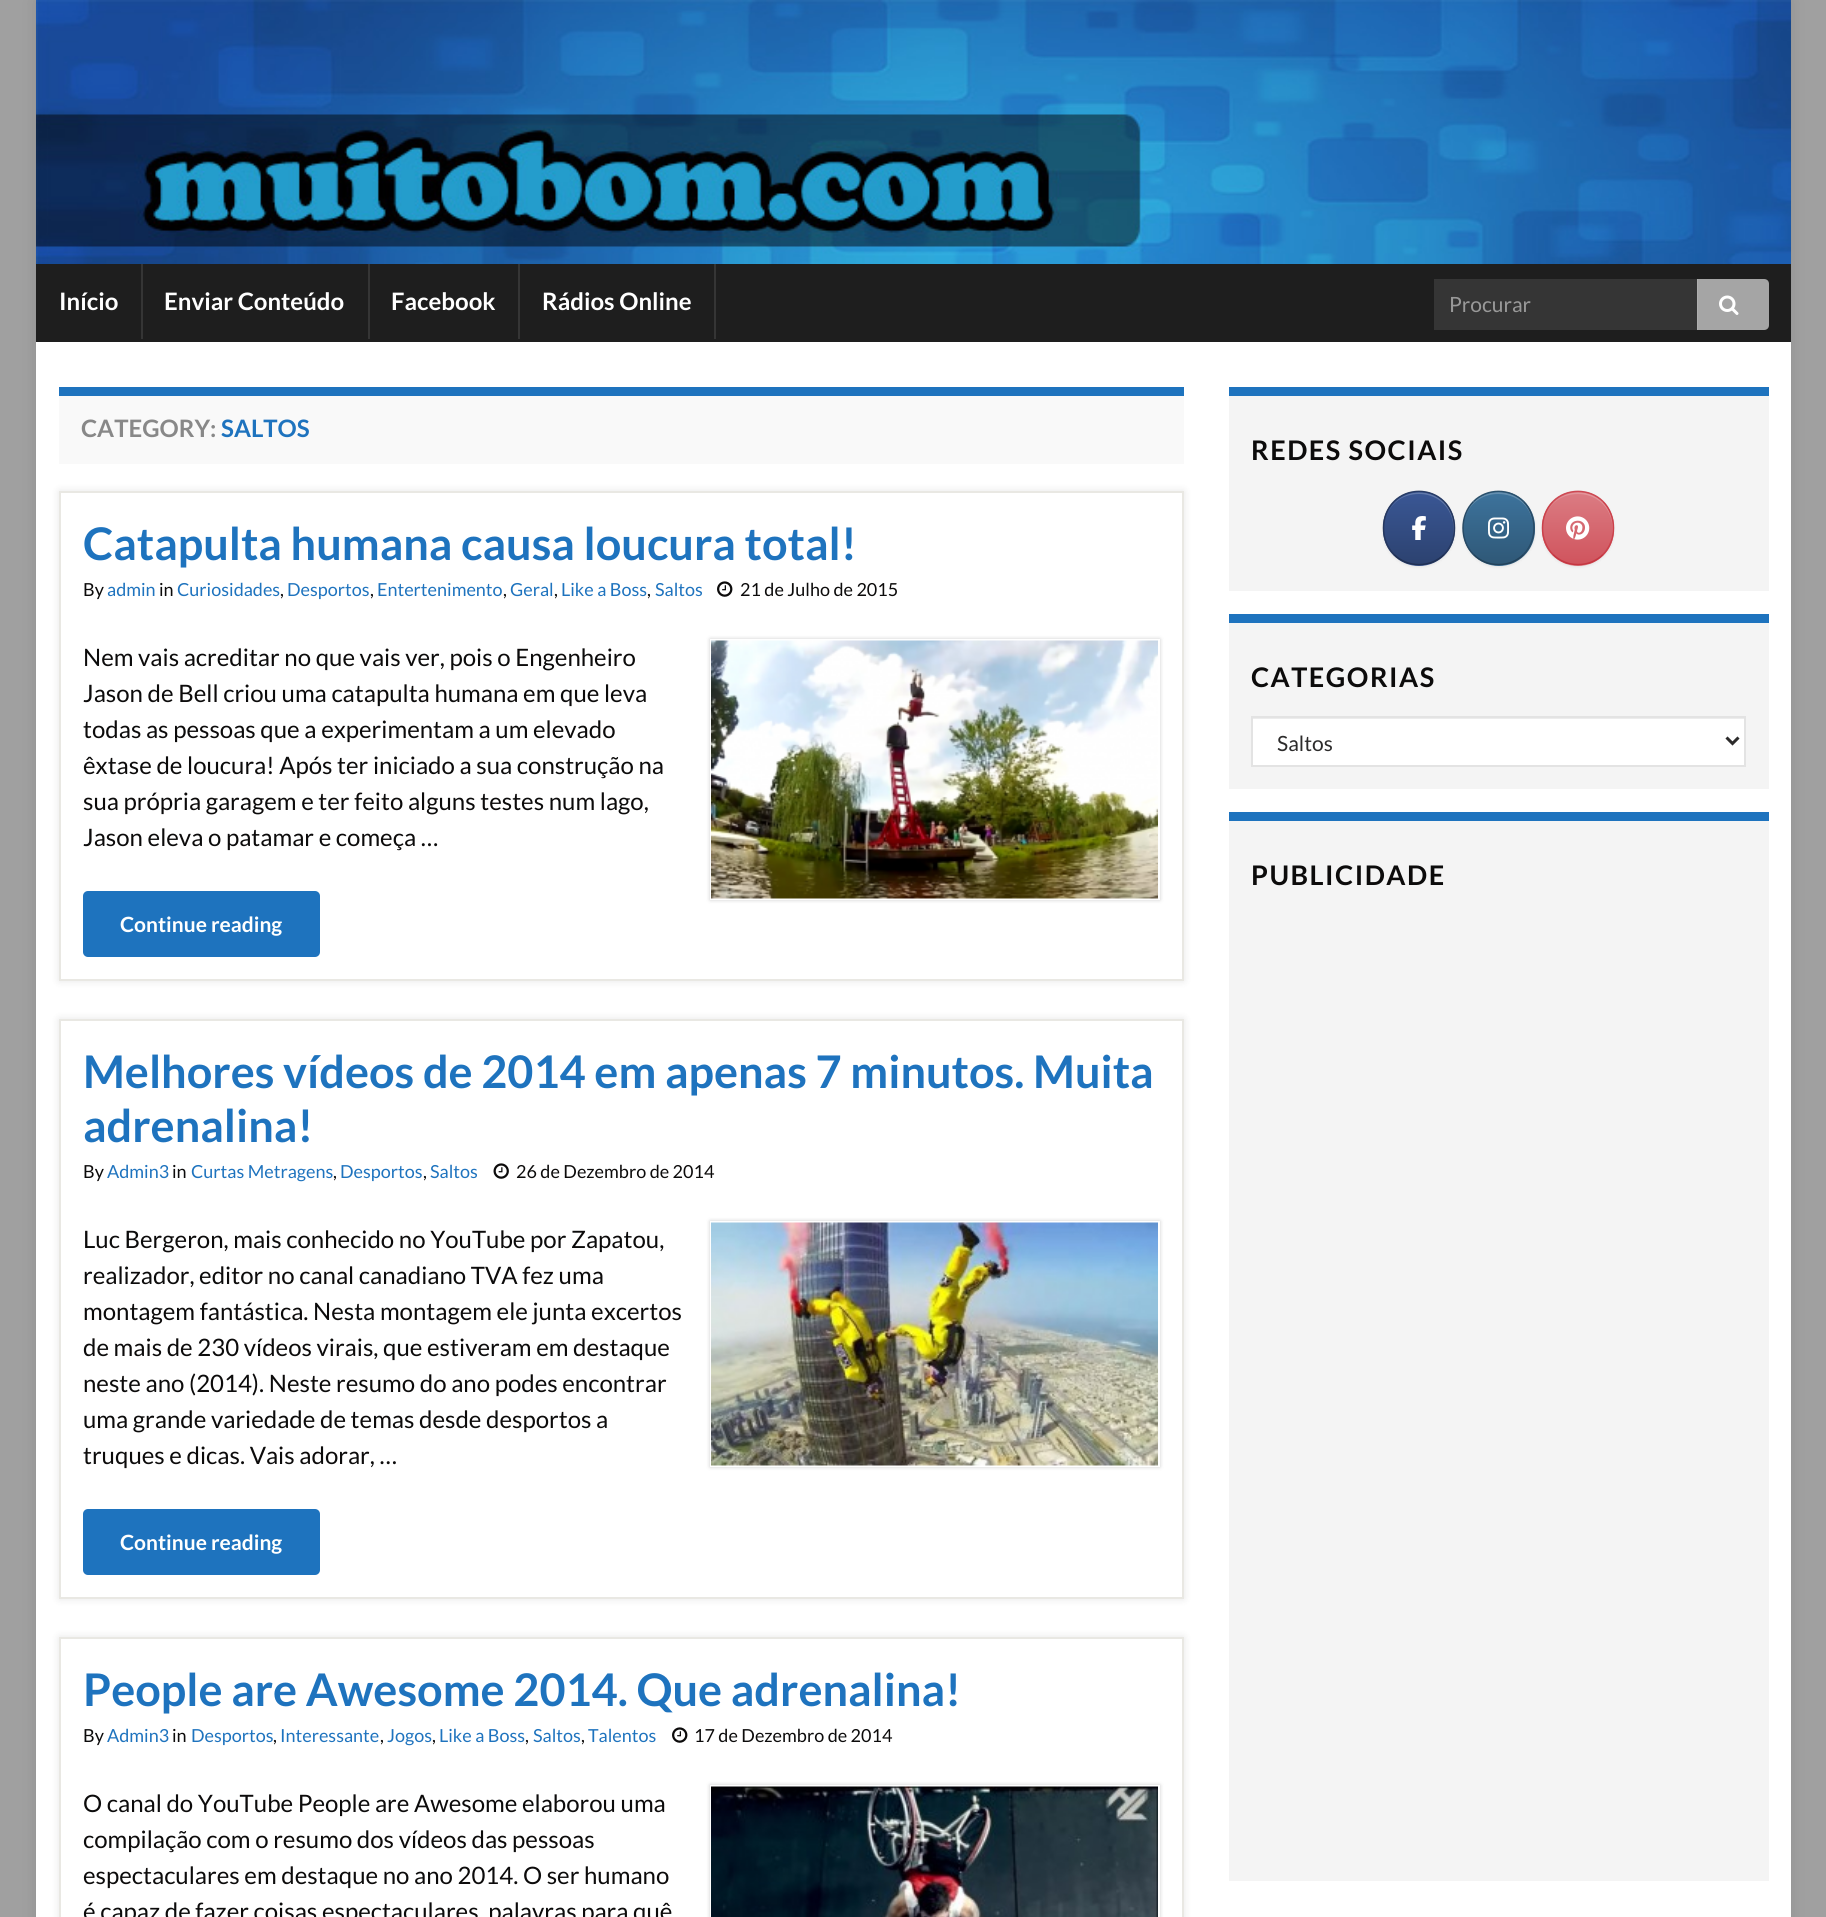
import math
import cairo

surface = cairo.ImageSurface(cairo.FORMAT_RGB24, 1826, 1917)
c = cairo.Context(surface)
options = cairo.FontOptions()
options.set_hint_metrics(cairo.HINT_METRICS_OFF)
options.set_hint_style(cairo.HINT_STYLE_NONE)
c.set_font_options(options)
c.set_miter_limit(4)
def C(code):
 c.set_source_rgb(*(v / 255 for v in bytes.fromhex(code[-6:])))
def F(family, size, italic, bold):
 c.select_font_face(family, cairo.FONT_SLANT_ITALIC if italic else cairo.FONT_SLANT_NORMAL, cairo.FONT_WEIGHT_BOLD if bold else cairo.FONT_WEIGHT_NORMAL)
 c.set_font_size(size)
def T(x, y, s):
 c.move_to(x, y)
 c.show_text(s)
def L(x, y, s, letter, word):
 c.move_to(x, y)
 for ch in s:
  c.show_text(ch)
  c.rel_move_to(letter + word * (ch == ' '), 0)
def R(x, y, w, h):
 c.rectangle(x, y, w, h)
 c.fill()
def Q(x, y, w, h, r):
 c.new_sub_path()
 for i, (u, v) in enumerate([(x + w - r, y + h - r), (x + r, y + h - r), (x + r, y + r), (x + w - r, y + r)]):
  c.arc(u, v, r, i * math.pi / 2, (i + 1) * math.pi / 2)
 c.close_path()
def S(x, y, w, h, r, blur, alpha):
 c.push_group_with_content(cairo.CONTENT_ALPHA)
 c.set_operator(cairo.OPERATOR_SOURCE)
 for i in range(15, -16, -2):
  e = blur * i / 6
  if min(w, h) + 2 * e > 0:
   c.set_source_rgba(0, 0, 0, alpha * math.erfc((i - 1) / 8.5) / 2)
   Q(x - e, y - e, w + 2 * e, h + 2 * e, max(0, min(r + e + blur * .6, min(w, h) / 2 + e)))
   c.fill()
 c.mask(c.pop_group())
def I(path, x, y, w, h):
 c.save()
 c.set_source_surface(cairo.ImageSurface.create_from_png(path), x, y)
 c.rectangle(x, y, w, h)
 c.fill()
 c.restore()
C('a0a0a0')
c.paint()
C('000000')
S(36,0,1755,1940,0,7.5,.1)
I('1.png',36,0,1755,264)
C('1e1e1e')
R(36,264,1755,78)
C('353535')
R(141,264,2,75)
F('Lato',24,0,1)
C('ffffff')
T(59,310,'Início')
C('353535')
R(368,264,2,75)
C('ffffff')
T(164,310,'Enviar Conteúdo')
C('353535')
R(518,264,2,75)
C('ffffff')
T(391,310,'Facebook')
C('353535')
R(714,264,2,75)
C('ffffff')
T(542,310,'Rádios Online')
C('353535')
R(1434,279,264,51)
F('Lato',21,0,0)
C('999999')
T(1449,312,'Procurar')
c.set_source_rgba(1,1,1,0.6)
c.new_path()
c.move_to(1697,279)
c.line_to(1764,279)
c.curve_to(1767,279,1769,281,1769,284)
c.line_to(1769,325)
c.curve_to(1769,328,1767,330,1764,330)
c.line_to(1697,330)
c.close_path()
c.fill()
I('2.png',1719,295,20,20)
C('ffffff')
R(36,342,1755,1575)
C('f9f9f9')
R(59,396,1125,68)
C('1e73be')
R(59,387,1125,9)
F('Lato',24,0,1)
C('888888')
T(81,437,'CATEGORY:')
C('1e73be')
T(221,437,'SALTOS')
C('000000')
S(59,491,1125,490,0,4,.1)
C('ffffff')
c.rectangle(60,492,1123,488)
c.fill_preserve()
C('e9e8e3')
c.stroke()
F('Lato',45,0,1)
C('1e73be')
T(83,560,'Catapulta humana causa loucura total!')
F('Lato',18,0,0)
C('0c0b0b')
T(83,596,'By')
C('1e73be')
T(107,596,'admin')
C('0c0b0b')
T(159,596,'in')
C('1e73be')
T(177,596,'Curiosidades')
C('0c0b0b')
T(280,596,',')
C('1e73be')
T(287,596,'Desportos')
C('0c0b0b')
T(370,596,',')
C('1e73be')
T(377,596,'Entertenimento')
C('0c0b0b')
T(503,596,',')
C('1e73be')
T(510,596,'Geral')
C('0c0b0b')
T(554,596,',')
C('1e73be')
T(561,596,'Like a Boss')
C('0c0b0b')
T(647,596,',')
C('1e73be')
T(655,596,'Saltos')
I('3.png',717,581,16,16)
C('0c0b0b')
T(740,596,'21 de Julho de 2015')
F('Lato',24,0,0)
T(83,666,'Nem vais acreditar no que vais ver, pois o Engenheiro')
T(83,702,'Jason de Bell criou uma catapulta humana em que leva')
T(83,738,'todas as pessoas que a experimentam a um elevado')
T(83,774,'êxtase de loucura! Após ter iniciado a sua construção na')
T(83,810,'sua própria garagem e ter feito alguns testes num lago,')
T(83,846,'Jason eleva o patamar e começa …')
C('000000')
S(710,639,450,261,0,2,.2)
c.rectangle(711,640,448,259)
C('ffffff')
c.stroke()
I('4.png',711,640,447,259)
C('1e73be')
Q(83,891,237,66,5)
c.fill()
F('Lato',21,0,1)
C('ffffff')
T(120,932,'Continue reading')
C('000000')
S(59,1019,1125,580,0,4,.1)
C('ffffff')
c.rectangle(60,1020,1123,578)
c.fill_preserve()
C('e9e8e3')
c.stroke()
F('Lato',45,0,1)
C('1e73be')
T(83,1088,'Melhores vídeos de 2014 em apenas 7 minutos. Muita')
T(83,1142,'adrenalina!')
F('Lato',18,0,0)
C('0c0b0b')
T(83,1178,'By')
C('1e73be')
T(107,1178,'Admin3')
C('0c0b0b')
T(172,1178,'in')
C('1e73be')
T(191,1178,'Curtas Metragens')
C('0c0b0b')
T(333,1178,',')
C('1e73be')
T(340,1178,'Desportos')
C('0c0b0b')
T(423,1178,',')
C('1e73be')
T(430,1178,'Saltos')
I('5.png',493,1163,16,16)
C('0c0b0b')
T(516,1178,'26 de Dezembro de 2014')
F('Lato',24,0,0)
T(83,1248,'Luc Bergeron, mais conhecido no YouTube por Zapatou,')
T(83,1284,'realizador, editor no canal canadiano TVA fez uma')
T(83,1320,'montagem fantástica. Nesta montagem ele junta excertos')
T(83,1356,'de mais de 230 vídeos virais, que estiveram em destaque')
T(83,1392,'neste ano (2014). Neste resumo do ano podes encontrar')
T(83,1428,'uma grande variedade de temas desde desportos a')
T(83,1464,'truques e dicas. Vais adorar, …')
C('000000')
S(710,1221,450,246,0,2,.2)
c.rectangle(711,1222,448,244)
C('ffffff')
c.stroke()
I('6.png',711,1222,447,244)
C('1e73be')
Q(83,1509,237,66,5)
c.fill()
F('Lato',21,0,1)
C('ffffff')
T(120,1550,'Continue reading')
C('000000')
S(59,1637,1125,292,0,4,.1)
C('ffffff')
c.rectangle(60,1638,1123,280)
c.fill_preserve()
C('e9e8e3')
c.stroke()
F('Lato',45,0,1)
C('1e73be')
T(83,1706,'People are Awesome 2014. Que adrenalina!')
F('Lato',18,0,0)
C('0c0b0b')
T(83,1742,'By')
C('1e73be')
T(107,1742,'Admin3')
C('0c0b0b')
T(172,1742,'in')
C('1e73be')
T(191,1742,'Desportos')
C('0c0b0b')
T(273,1742,',')
C('1e73be')
T(280,1742,'Interessante')
C('0c0b0b')
T(380,1742,',')
C('1e73be')
T(387,1742,'Jogos')
C('0c0b0b')
T(432,1742,',')
C('1e73be')
T(439,1742,'Like a Boss')
C('0c0b0b')
T(525,1742,',')
C('1e73be')
T(533,1742,'Saltos')
C('0c0b0b')
T(581,1742,',')
C('1e73be')
T(588,1742,'Talentos')
I('3.png',672,1727,16,16)
C('0c0b0b')
T(694,1742,'17 de Dezembro de 2014')
F('Lato',24,0,0)
T(83,1812,'O canal do YouTube People are Awesome elaborou uma')
T(83,1848,'compilação com o resumo dos vídeos das pessoas')
T(83,1884,'espectaculares em destaque no ano 2014. O ser humano')
T(83,1920,'é capaz de fazer coisas espectaculares, palavras para quê')
C('000000')
S(710,1785,450,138,0,2,.2)
c.rectangle(711,1786,448,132)
C('ffffff')
c.stroke()
I('7.png',711,1786,447,131)
C('f4f4f4')
R(1229,396,540,195)
C('1e73be')
R(1229,387,540,9)
F('Lato',27,0,1)
C('0c0b0b')
L(1251,460,'REDES SOCIAIS',1.5,0)
C('000000')
S(1383,492,72,75,36,1.5,.07)
c.save()
Q(1383,491,72,75,36)
c.clip()
gradient = cairo.LinearGradient(1385,564,1385,492)
gradient.add_color_stop_rgba(0,0.173,0.259,0.439,1)
gradient.add_color_stop_rgba(1,0.227,0.341,0.584,1)
c.set_source(gradient)
R(1383,492,72,72)
gradient = cairo.LinearGradient(1385,636,1385,564)
gradient.add_color_stop_rgba(0,0.173,0.259,0.439,1)
gradient.add_color_stop_rgba(1,0.227,0.341,0.584,1)
c.set_source(gradient)
R(1407,564,24,2)
c.restore()
c.set_source_rgba(1,1,1,0.2)
c.new_path()
c.move_to(1419,494)
c.curve_to(1446,494,1461,521,1450,546)
c.curve_to(1453,540,1455,533,1454,526)
c.curve_to(1454,521,1454,518,1451,513)
c.curve_to(1438,483,1394,487,1386,518)
c.curve_to(1390,503,1403,494,1419,494)
c.close_path()
c.fill()
c.new_path()
c.move_to(1394,501.5)
c.curve_to(1407.5,488,1430.5,488,1444,501.5)
C('273b65')
c.set_line_width(1.5)
c.stroke()
c.new_path()
c.move_to(1444,501.5)
c.curve_to(1458,515.5,1458,540.5,1444,554.5)
C('25375e')
c.stroke()
c.new_path()
c.move_to(1444,554.5)
c.curve_to(1430.5,568,1407.5,568,1394,554.5)
C('203053')
c.stroke()
c.new_path()
c.move_to(1394,554.5)
c.curve_to(1380,540.5,1380,515.5,1394,501.5)
C('25375e')
c.stroke()
I('8.png',1412,516,14,24)
C('000000')
S(1463,492,72,75,36,1.5,.07)
c.save()
Q(1463,491,72,75,36)
c.clip()
gradient = cairo.LinearGradient(1464,564,1464,492)
gradient.add_color_stop_rgba(0,0.184,0.345,0.467,1)
gradient.add_color_stop_rgba(1,0.239,0.451,0.612,1)
c.set_source(gradient)
R(1463,492,72,72)
gradient = cairo.LinearGradient(1464,636,1464,564)
gradient.add_color_stop_rgba(0,0.184,0.345,0.467,1)
gradient.add_color_stop_rgba(1,0.239,0.451,0.612,1)
c.set_source(gradient)
R(1487,564,24,2)
c.restore()
c.set_source_rgba(1,1,1,0.2)
c.new_path()
c.move_to(1498,494)
c.curve_to(1516,494,1530,505,1533,523)
c.curve_to(1529,482,1469,482,1464,522)
c.curve_to(1467,505,1481,494,1498,494)
c.close_path()
c.fill()
c.new_path()
c.move_to(1473.5,501.5)
c.curve_to(1487,488,1510,488,1523.5,501.5)
C('2a506c')
c.stroke()
c.new_path()
c.move_to(1523.5,501.5)
c.curve_to(1537.5,515.5,1537.5,540.5,1523.5,554.5)
C('274a65')
c.stroke()
c.new_path()
c.move_to(1523.5,554.5)
c.curve_to(1510,568,1487,568,1473.5,554.5)
C('23425a')
c.stroke()
c.new_path()
c.move_to(1473.5,554.5)
c.curve_to(1459.5,540.5,1459.5,515.5,1473.5,501.5)
C('274a65')
c.stroke()
I('9.png',1488,517,21,22)
C('000000')
S(1542,492,72,75,36,1.5,.07)
c.save()
Q(1542,491,72,75,36)
c.clip()
gradient = cairo.LinearGradient(1544,564,1544,492)
gradient.add_color_stop_rgba(0,0.816,0.329,0.365,1)
gradient.add_color_stop_rgba(1,0.859,0.486,0.514,1)
c.set_source(gradient)
R(1542,492,72,72)
gradient = cairo.LinearGradient(1544,636,1544,564)
gradient.add_color_stop_rgba(0,0.816,0.329,0.365,1)
gradient.add_color_stop_rgba(1,0.859,0.486,0.514,1)
c.set_source(gradient)
R(1566,564,24,2)
c.restore()
c.set_source_rgba(1,1,1,0.2)
c.new_path()
c.move_to(1578,494)
c.curve_to(1605,494,1620,521,1609,546)
c.curve_to(1612,540,1614,533,1613,526)
c.curve_to(1613,521,1613,518,1610,513)
c.curve_to(1597,483,1553,487,1545,518)
c.curve_to(1549,503,1562,494,1578,494)
c.close_path()
c.fill()
c.new_path()
c.move_to(1553,501.5)
c.curve_to(1566.5,488,1589.5,488,1603,501.5)
C('cd4852')
c.stroke()
c.new_path()
c.move_to(1603,501.5)
c.curve_to(1617,515.5,1617,540.5,1603,554.5)
C('cb404a')
c.stroke()
c.new_path()
c.move_to(1603,554.5)
c.curve_to(1589.5,568,1566.5,568,1553,554.5)
C('c53641')
c.stroke()
c.new_path()
c.move_to(1553,554.5)
c.curve_to(1539,540.5,1539,515.5,1553,501.5)
C('cb404a')
c.stroke()
I('10.png',1566,516,24,24)
C('f4f4f4')
R(1229,623,540,166)
C('1e73be')
R(1229,614,540,9)
C('0c0b0b')
L(1251,687,'CATEGORIAS',1.5,0)
C('ffffff')
R(1253,719,491,46)
C('ececec')
R(1253,718,492,1)
c.rectangle(1252,717,493,49)
C('e3e3e3')
c.set_line_width(2)
c.stroke()
c.new_path()
c.move_to(1726.5,737.5)
c.line_to(1732.5,743.5)
c.line_to(1738.5,737.5)
C('2c2b2b')
c.set_line_width(3)
c.stroke()
F('Lato',21,0,0)
T(1277,751,'Saltos')
C('f4f4f4')
R(1229,821,540,1060)
C('1e73be')
R(1229,812,540,9)
F('Lato',27,0,1)
C('0c0b0b')
L(1251,885,'PUBLICIDADE',1.5,0)
surface.write_to_png('o.png')
